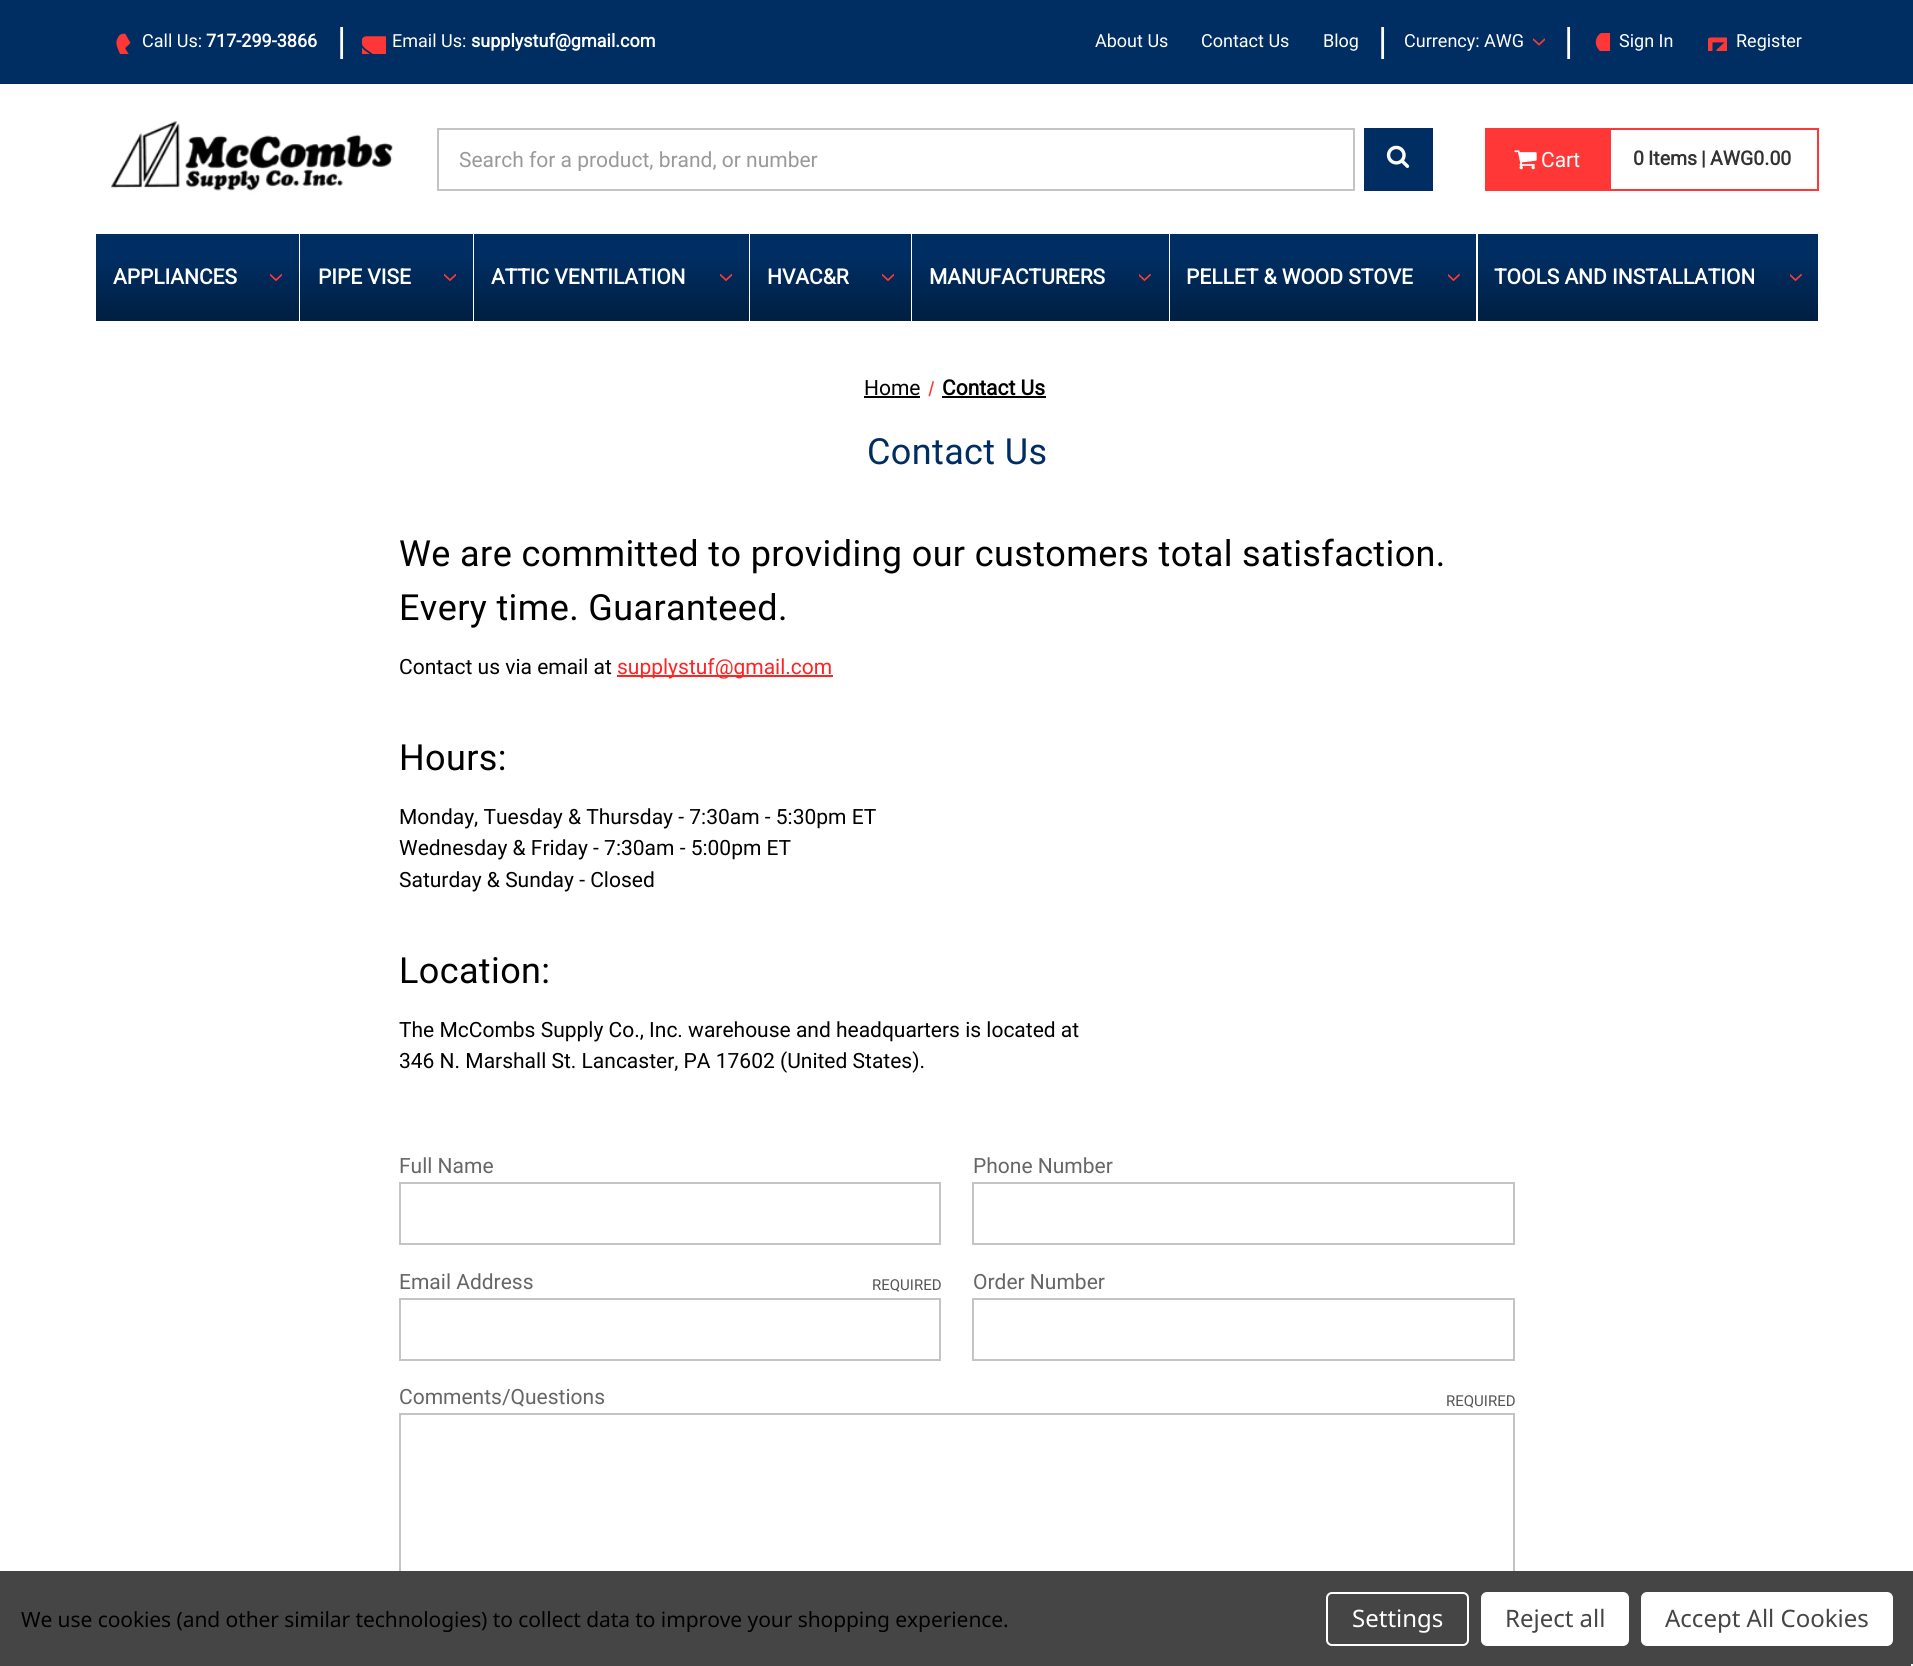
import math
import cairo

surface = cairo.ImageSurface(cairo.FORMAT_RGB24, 1913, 1666)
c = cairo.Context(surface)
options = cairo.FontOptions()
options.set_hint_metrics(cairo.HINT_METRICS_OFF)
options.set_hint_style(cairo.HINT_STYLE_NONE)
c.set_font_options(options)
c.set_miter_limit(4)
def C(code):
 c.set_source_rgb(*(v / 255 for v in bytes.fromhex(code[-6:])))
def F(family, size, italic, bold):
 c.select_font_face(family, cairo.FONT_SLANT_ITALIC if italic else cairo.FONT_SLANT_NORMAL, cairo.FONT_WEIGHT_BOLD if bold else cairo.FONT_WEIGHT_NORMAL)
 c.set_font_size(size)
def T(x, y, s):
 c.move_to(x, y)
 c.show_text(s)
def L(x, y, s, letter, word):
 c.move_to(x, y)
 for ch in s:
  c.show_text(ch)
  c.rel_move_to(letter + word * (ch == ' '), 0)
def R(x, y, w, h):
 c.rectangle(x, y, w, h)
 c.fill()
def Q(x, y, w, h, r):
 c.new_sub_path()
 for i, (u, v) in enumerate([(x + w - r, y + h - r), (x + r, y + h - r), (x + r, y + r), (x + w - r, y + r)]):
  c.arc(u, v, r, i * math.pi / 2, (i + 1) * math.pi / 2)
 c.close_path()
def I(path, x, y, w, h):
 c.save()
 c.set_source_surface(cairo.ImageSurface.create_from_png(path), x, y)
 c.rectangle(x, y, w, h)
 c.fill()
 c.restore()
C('ffffff')
c.paint()
C('002e63')
R(0,0,1913,84)
I('1.png',116,33,15,21)
F('Roboto',18,0,0)
C('ffffff')
T(142,47,'Call Us:')
F('Roboto',18,0,1)
T(206,47,'717-299-3866')
F('Roboto',38,0,0)
T(337,54,'|')
I('2.png',362,36,24,18)
F('Roboto',18,0,0)
T(392,47,'Email Us:')
F('Roboto',18,0,1)
T(471,47,'supplystuf@gmail.com')
F('Roboto',18,0,0)
T(1095,47,'About Us')
T(1201,47,'Contact Us')
T(1323,47,'Blog')
F('Roboto',38,0,0)
T(1378,54,'|')
F('Roboto',18,0,0)
T(1404,47,'Currency: AWG')
I('3.png',1533,38,12,8)
F('Roboto',38,0,0)
T(1564,54,'|')
I('4.png',1595,33,15,18)
F('Roboto',18,0,0)
T(1619,47,'Sign In')
I('5.png',1708,37,19,14)
T(1736,47,'Register')
I('6.png',111,121,283,72)
c.rectangle(438,129,916,61)
C('c4c4c4')
c.stroke()
c.save()
c.rectangle(459,147,873,24)
c.clip()
F('Roboto',21,0,0)
C('999999')
T(459,167,'Search for a product, brand, or number')
c.restore()
gradient = cairo.LinearGradient(1398,128,1398,285)
gradient.add_color_stop_rgba(0,0,0.18,0.388,1)
gradient.add_color_stop_rgba(.5,0,0.18,0.388,1)
gradient.add_color_stop_rgba(1,0,0.122,0.259,1)
c.set_source(gradient)
R(1364,128,69,63)
I('7.png',1386,145,24,23)
C('ff3737')
c.rectangle(1486,129,124,61)
c.fill_preserve()
c.stroke()
I('8.png',1514,150,23,20)
F('Roboto',21,0,0)
C('ffffff')
T(1541,167,'Cart')
C('ff3737')
R(1611,128,207,2)
R(1817,128,2,63)
R(1611,189,207,2)
F('Roboto',19.5,0,1)
C('333333')
T(1633,165,'0')
T(1648,165,'Items')
T(1701,165,'|')
T(1710,165,'AWG0.00')
gradient = cairo.LinearGradient(197,191,197,321)
gradient.add_color_stop_rgba(0,0,0.18,0.388,1)
gradient.add_color_stop_rgba(.5,0,0.18,0.388,1)
gradient.add_color_stop_rgba(1,0,0.122,0.259,1)
c.set_source(gradient)
R(96,234,203,87)
F('Roboto',21,0,1)
C('ffffff')
T(113,284,'APPLIANCES')
I('9.png',270,273,12,9)
gradient = cairo.LinearGradient(386,191,386,321)
gradient.add_color_stop_rgba(0,0,0.18,0.388,1)
gradient.add_color_stop_rgba(.5,0,0.18,0.388,1)
gradient.add_color_stop_rgba(1,0,0.122,0.259,1)
c.set_source(gradient)
R(300,234,173,87)
C('ffffff')
T(318,284,'PIPE VISE')
I('9.png',444,273,12,9)
gradient = cairo.LinearGradient(611,190,611,321)
gradient.add_color_stop_rgba(0,0,0.18,0.388,1)
gradient.add_color_stop_rgba(.5,0,0.18,0.388,1)
gradient.add_color_stop_rgba(1,0,0.122,0.259,1)
c.set_source(gradient)
R(474,234,275,87)
C('ffffff')
T(491,284,'ATTIC VENTILATION')
I('10.png',720,273,12,9)
gradient = cairo.LinearGradient(830,191,830,321)
gradient.add_color_stop_rgba(0,0,0.18,0.388,1)
gradient.add_color_stop_rgba(.5,0,0.18,0.388,1)
gradient.add_color_stop_rgba(1,0,0.122,0.259,1)
c.set_source(gradient)
R(750,234,161,87)
C('ffffff')
T(767,284,'HVAC&R')
I('9.png',882,273,12,9)
gradient = cairo.LinearGradient(1040,191,1040,321)
gradient.add_color_stop_rgba(0,0,0.18,0.388,1)
gradient.add_color_stop_rgba(.5,0,0.18,0.388,1)
gradient.add_color_stop_rgba(1,0,0.122,0.259,1)
c.set_source(gradient)
R(912,234,257,87)
C('ffffff')
T(929,284,'MANUFACTURERS')
I('11.png',1139,273,12,9)
gradient = cairo.LinearGradient(1323,190,1323,321)
gradient.add_color_stop_rgba(0,0,0.18,0.388,1)
gradient.add_color_stop_rgba(.5,0,0.18,0.388,1)
gradient.add_color_stop_rgba(1,0,0.122,0.259,1)
c.set_source(gradient)
R(1170,234,306,87)
C('ffffff')
T(1186,284,'PELLET & WOOD STOVE')
I('12.png',1448,273,12,9)
gradient = cairo.LinearGradient(1648,190,1648,321)
gradient.add_color_stop_rgba(0,0,0.18,0.388,1)
gradient.add_color_stop_rgba(.5,0,0.18,0.388,1)
gradient.add_color_stop_rgba(1,0,0.122,0.259,1)
c.set_source(gradient)
R(1478,234,340,87)
C('ffffff')
T(1494,284,'TOOLS AND INSTALLATION')
I('12.png',1790,273,12,9)
F('Roboto',21,0,0)
C('000000')
T(864,395,'Home')
R(864,396,56,2)
C('ff3737')
c.new_path()
c.move_to(932.5,381)
c.line_to(934,381.5)
c.line_to(930,396.5)
c.line_to(928.5,396)
c.close_path()
c.fill()
F('Roboto',21,0,1)
C('000000')
T(942,395,'Contact Us')
R(942,396,104,2)
F('Roboto',36,0,0)
C('002e63')
L(867,464,'Contact Us',.38,0)
C('000000')
L(399,566,'We are committed to providing our customers total satisfaction.',.38,0)
L(399,620,'Every time. Guaranteed.',.38,0)
F('Roboto',21,0,0)
T(399,674,'Contact us via email at')
C('ff2424')
R(617,675,216,2)
T(617,674,'supplystuf@gmail.com')
F('Roboto',36,0,0)
C('000000')
L(399,770,'Hours:',.38,0)
F('Roboto',21,0,0)
T(399,824,'Monday, Tuesday & Thursday - 7:30am - 5:30pm ET')
T(399,855,'Wednesday & Friday - 7:30am - 5:00pm ET')
T(399,887,'Saturday & Sunday - Closed')
F('Roboto',36,0,0)
L(399,983,'Location:',.38,0)
F('Roboto',21,0,0)
T(399,1037,'The McCombs Supply Co., Inc. warehouse and headquarters is located at')
T(399,1068,'346 N. Marshall St. Lancaster, PA 17602 (United States).')
C('666666')
T(399,1173,'Full Name')
c.rectangle(400,1183,540,61)
C('c4c4c4')
c.stroke()
C('666666')
T(973,1173,'Phone Number')
c.rectangle(973,1183,541,61)
C('c4c4c4')
c.stroke()
C('666666')
T(399,1289,'Email Address')
F('Roboto',15,0,0)
C('555555')
T(872,1290,'REQUIRED')
c.rectangle(400,1299,540,61)
C('c4c4c4')
c.stroke()
F('Roboto',21,0,0)
C('666666')
T(973,1289,'Order Number')
c.rectangle(973,1299,541,61)
C('c4c4c4')
c.stroke()
C('666666')
T(399,1404,'Comments/Questions')
F('Roboto',15,0,0)
C('555555')
T(1446,1406,'REQUIRED')
c.rectangle(400,1414,1114,190)
C('c4c4c4')
c.stroke()
C('454545')
R(0,1571,1913,95)
F('Noto Sans',21,0,0)
C('000000')
L(21,1627,'We use cookies (and other similar technologies) to collect data to improve your shopping experience.',-.08,0)
Q(1327,1593,141,52,5)
C('ffffff')
c.stroke()
F('Noto Sans',24,0,0)
T(1352,1627,'Settings')
Q(1481,1592,148,54,6)
c.fill()
C('454545')
T(1505,1627,'Reject all')
C('ffffff')
Q(1641,1592,252,54,6)
c.fill()
C('454545')
T(1665,1627,'Accept All Cookies')
C('f5f5f5')
R(1911,1664,2,2)
surface.write_to_png('o.png')
